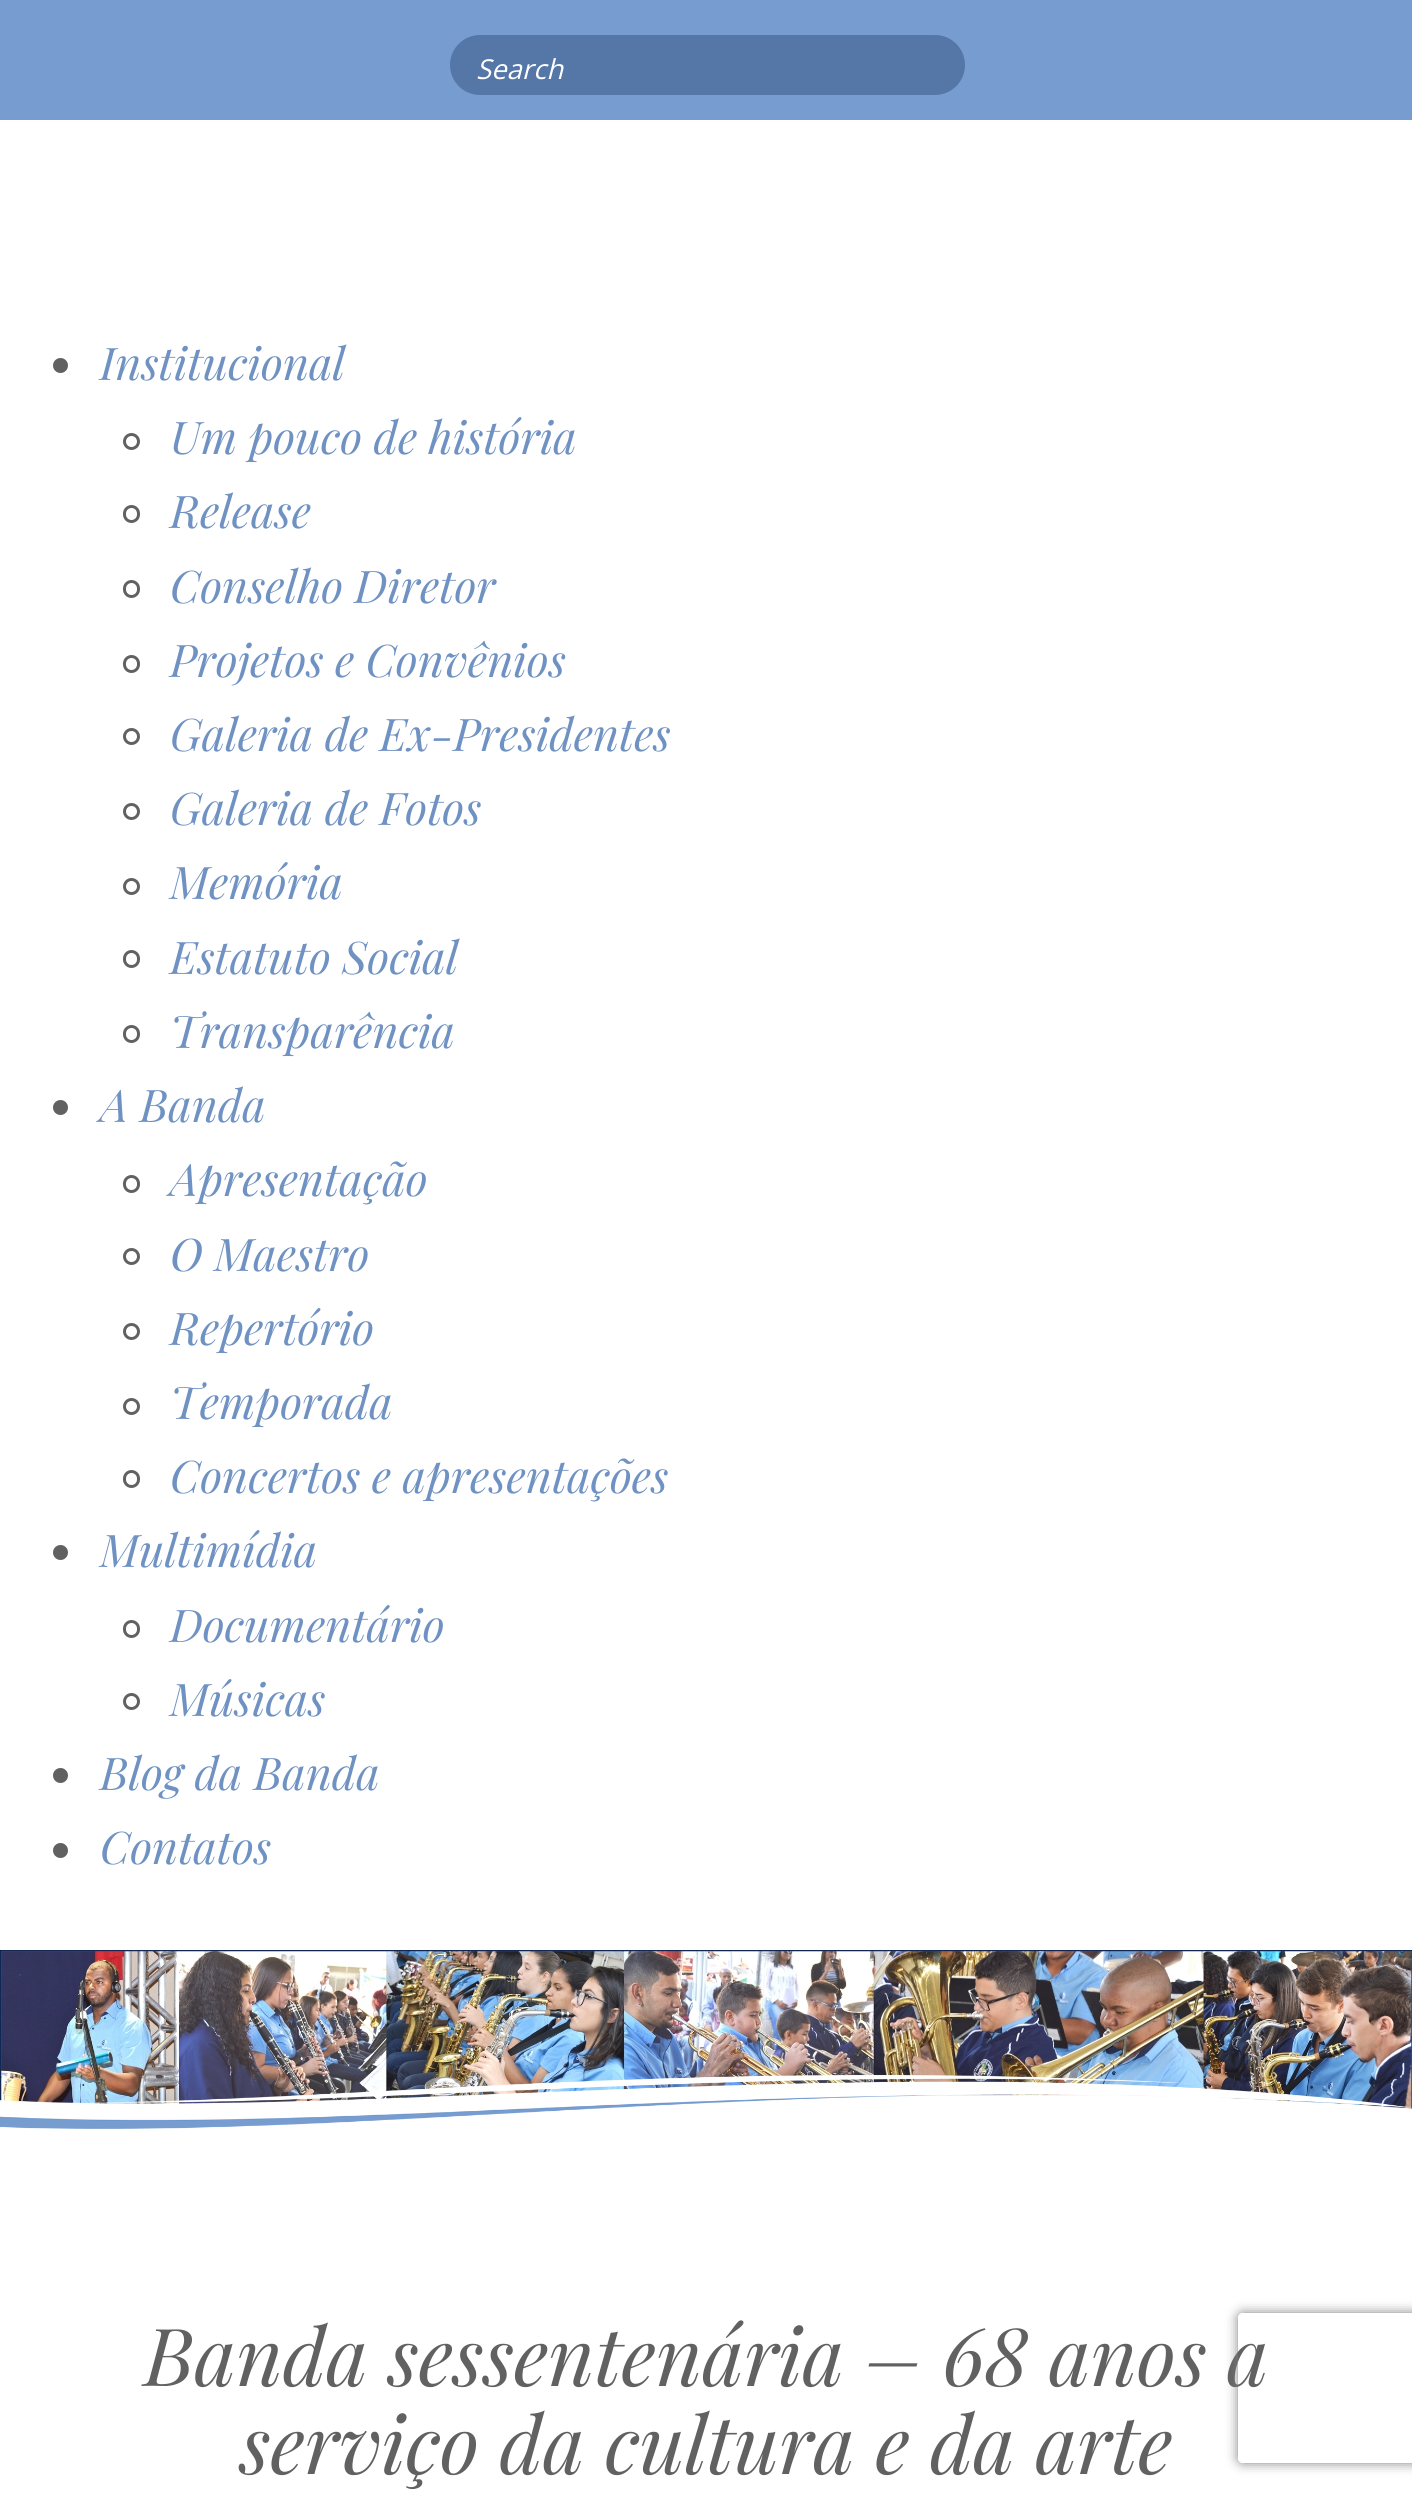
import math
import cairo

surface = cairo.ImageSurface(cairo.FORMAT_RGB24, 1412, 2496)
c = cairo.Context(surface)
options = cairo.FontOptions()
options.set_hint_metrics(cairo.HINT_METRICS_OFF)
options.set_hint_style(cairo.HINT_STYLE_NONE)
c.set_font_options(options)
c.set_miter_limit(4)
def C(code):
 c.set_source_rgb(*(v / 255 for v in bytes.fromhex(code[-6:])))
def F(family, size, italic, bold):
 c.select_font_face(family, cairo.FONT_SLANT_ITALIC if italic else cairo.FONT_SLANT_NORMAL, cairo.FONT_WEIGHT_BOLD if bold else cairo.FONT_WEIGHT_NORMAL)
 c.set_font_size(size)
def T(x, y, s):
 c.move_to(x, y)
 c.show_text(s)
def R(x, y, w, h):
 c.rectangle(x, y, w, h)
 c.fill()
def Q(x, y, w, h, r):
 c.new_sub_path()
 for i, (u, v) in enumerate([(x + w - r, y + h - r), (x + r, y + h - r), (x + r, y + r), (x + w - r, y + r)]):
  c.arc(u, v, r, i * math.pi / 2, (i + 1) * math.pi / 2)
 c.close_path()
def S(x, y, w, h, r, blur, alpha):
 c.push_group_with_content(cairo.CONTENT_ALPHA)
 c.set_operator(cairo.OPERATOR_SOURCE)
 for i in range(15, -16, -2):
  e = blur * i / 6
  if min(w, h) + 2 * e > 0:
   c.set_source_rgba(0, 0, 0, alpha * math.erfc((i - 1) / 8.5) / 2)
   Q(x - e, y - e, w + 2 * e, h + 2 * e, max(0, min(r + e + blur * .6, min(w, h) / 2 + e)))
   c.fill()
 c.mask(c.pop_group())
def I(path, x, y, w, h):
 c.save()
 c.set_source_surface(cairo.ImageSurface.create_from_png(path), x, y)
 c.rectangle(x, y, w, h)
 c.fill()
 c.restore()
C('769cd0')
c.paint()
C('5477a7')
Q(451.5,36.5,512,57,28.5)
c.fill_preserve()
c.set_line_width(3)
c.stroke()
F('Open Sans',27.5,1,0)
C('ffffff')
T(476,79,'Search')
R(0,120,1412,1830)
C('616161')
c.new_path()
c.arc(60.5,365.5,7.5,0,2 * math.pi)
c.fill()
F('Playfair Display',45,1,0)
C('6f92c3')
T(100,380,'Institucional')
c.new_path()
c.arc(131.5,441.5,7,0,2 * math.pi)
C('616161')
c.stroke()
C('6f92c3')
T(170,454,'Um pouco de história')
Q(124.5,506.5,14,15,7)
C('616161')
c.stroke()
C('6f92c3')
T(170,528,'Release')
Q(124.5,581.5,14,15,7)
C('616161')
c.stroke()
C('6f92c3')
T(170,603,'Conselho Diretor')
Q(124.5,656.5,14,15,7)
C('616161')
c.stroke()
C('6f92c3')
T(170,677,'Projetos e Convênios')
c.new_path()
c.arc(131.5,736.5,7,0,2 * math.pi)
C('616161')
c.stroke()
C('6f92c3')
T(170,751,'Galeria de Ex-Presidentes')
c.new_path()
c.arc(131.5,811.5,7,0,2 * math.pi)
C('616161')
c.stroke()
C('6f92c3')
T(170,825,'Galeria de Fotos')
c.new_path()
c.arc(131.5,886.5,7,0,2 * math.pi)
C('616161')
c.stroke()
C('6f92c3')
T(170,899,'Memória')
Q(124.5,951.5,14,15,7)
C('616161')
c.stroke()
C('6f92c3')
T(170,974,'Estatuto Social')
Q(124.5,1026.5,14,15,7)
C('616161')
c.stroke()
C('6f92c3')
T(170,1048,'Transparência')
C('616161')
c.new_path()
c.arc(60.5,1107.5,7.5,0,2 * math.pi)
c.fill()
C('6f92c3')
T(100,1122,'A Banda')
Q(124.5,1176.5,14,15,7)
C('616161')
c.stroke()
C('6f92c3')
T(170,1196,'Apresentação')
c.new_path()
c.arc(131.5,1256.5,7,0,2 * math.pi)
C('616161')
c.stroke()
C('6f92c3')
T(170,1271,'O Maestro')
c.new_path()
c.arc(131.5,1331.5,7,0,2 * math.pi)
C('616161')
c.stroke()
C('6f92c3')
T(170,1345,'Repertório')
c.new_path()
c.arc(131.5,1406.5,7,0,2 * math.pi)
C('616161')
c.stroke()
C('6f92c3')
T(170,1419,'Temporada')
Q(124.5,1471.5,14,15,7)
C('616161')
c.stroke()
C('6f92c3')
T(170,1493,'Concertos e apresentações')
C('616161')
c.new_path()
c.arc(60.5,1552.5,7.5,0,2 * math.pi)
c.fill()
C('6f92c3')
T(100,1567,'Multimídia')
Q(124.5,1621.5,14,15,7)
C('616161')
c.stroke()
C('6f92c3')
T(170,1642,'Documentário')
c.new_path()
c.arc(131.5,1701.5,7,0,2 * math.pi)
C('616161')
c.stroke()
C('6f92c3')
T(170,1716,'Músicas')
C('616161')
c.new_path()
c.arc(60.5,1775.5,7.5,0,2 * math.pi)
c.fill()
C('6f92c3')
T(100,1790,'Blog da Banda')
C('616161')
c.new_path()
c.arc(60.5,1850.5,7.5,0,2 * math.pi)
c.fill()
C('6f92c3')
T(100,1864,'Contatos')
I('1.png',0,1950,1412,159)
I('2.png',0,2075,1412,54)
C('ffffff')
R(0,2129,1412,367)
F('Playfair Display',80,1,0)
C('616161')
T(144,2386,'Banda sessentenária – 68 anos a')
T(240,2474,'serviço da cultura e da arte')
c.save()
c.set_fill_rule(cairo.FILL_RULE_EVEN_ODD)
c.new_path()
c.move_to(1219,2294)
c.line_to(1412,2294)
c.line_to(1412,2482)
c.line_to(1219,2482)
c.close_path()
c.move_to(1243,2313)
c.line_to(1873,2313)
c.curve_to(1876,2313,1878,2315,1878,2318)
c.line_to(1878,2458)
c.curve_to(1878,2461,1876,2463,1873,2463)
c.line_to(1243,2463)
c.curve_to(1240,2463,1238,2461,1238,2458)
c.line_to(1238,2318)
c.curve_to(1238,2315,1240,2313,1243,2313)
c.close_path()
c.clip()
C('808080')
S(1238,2313,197,150,5,6,1)
c.restore()
surface.write_to_png('o.png')
